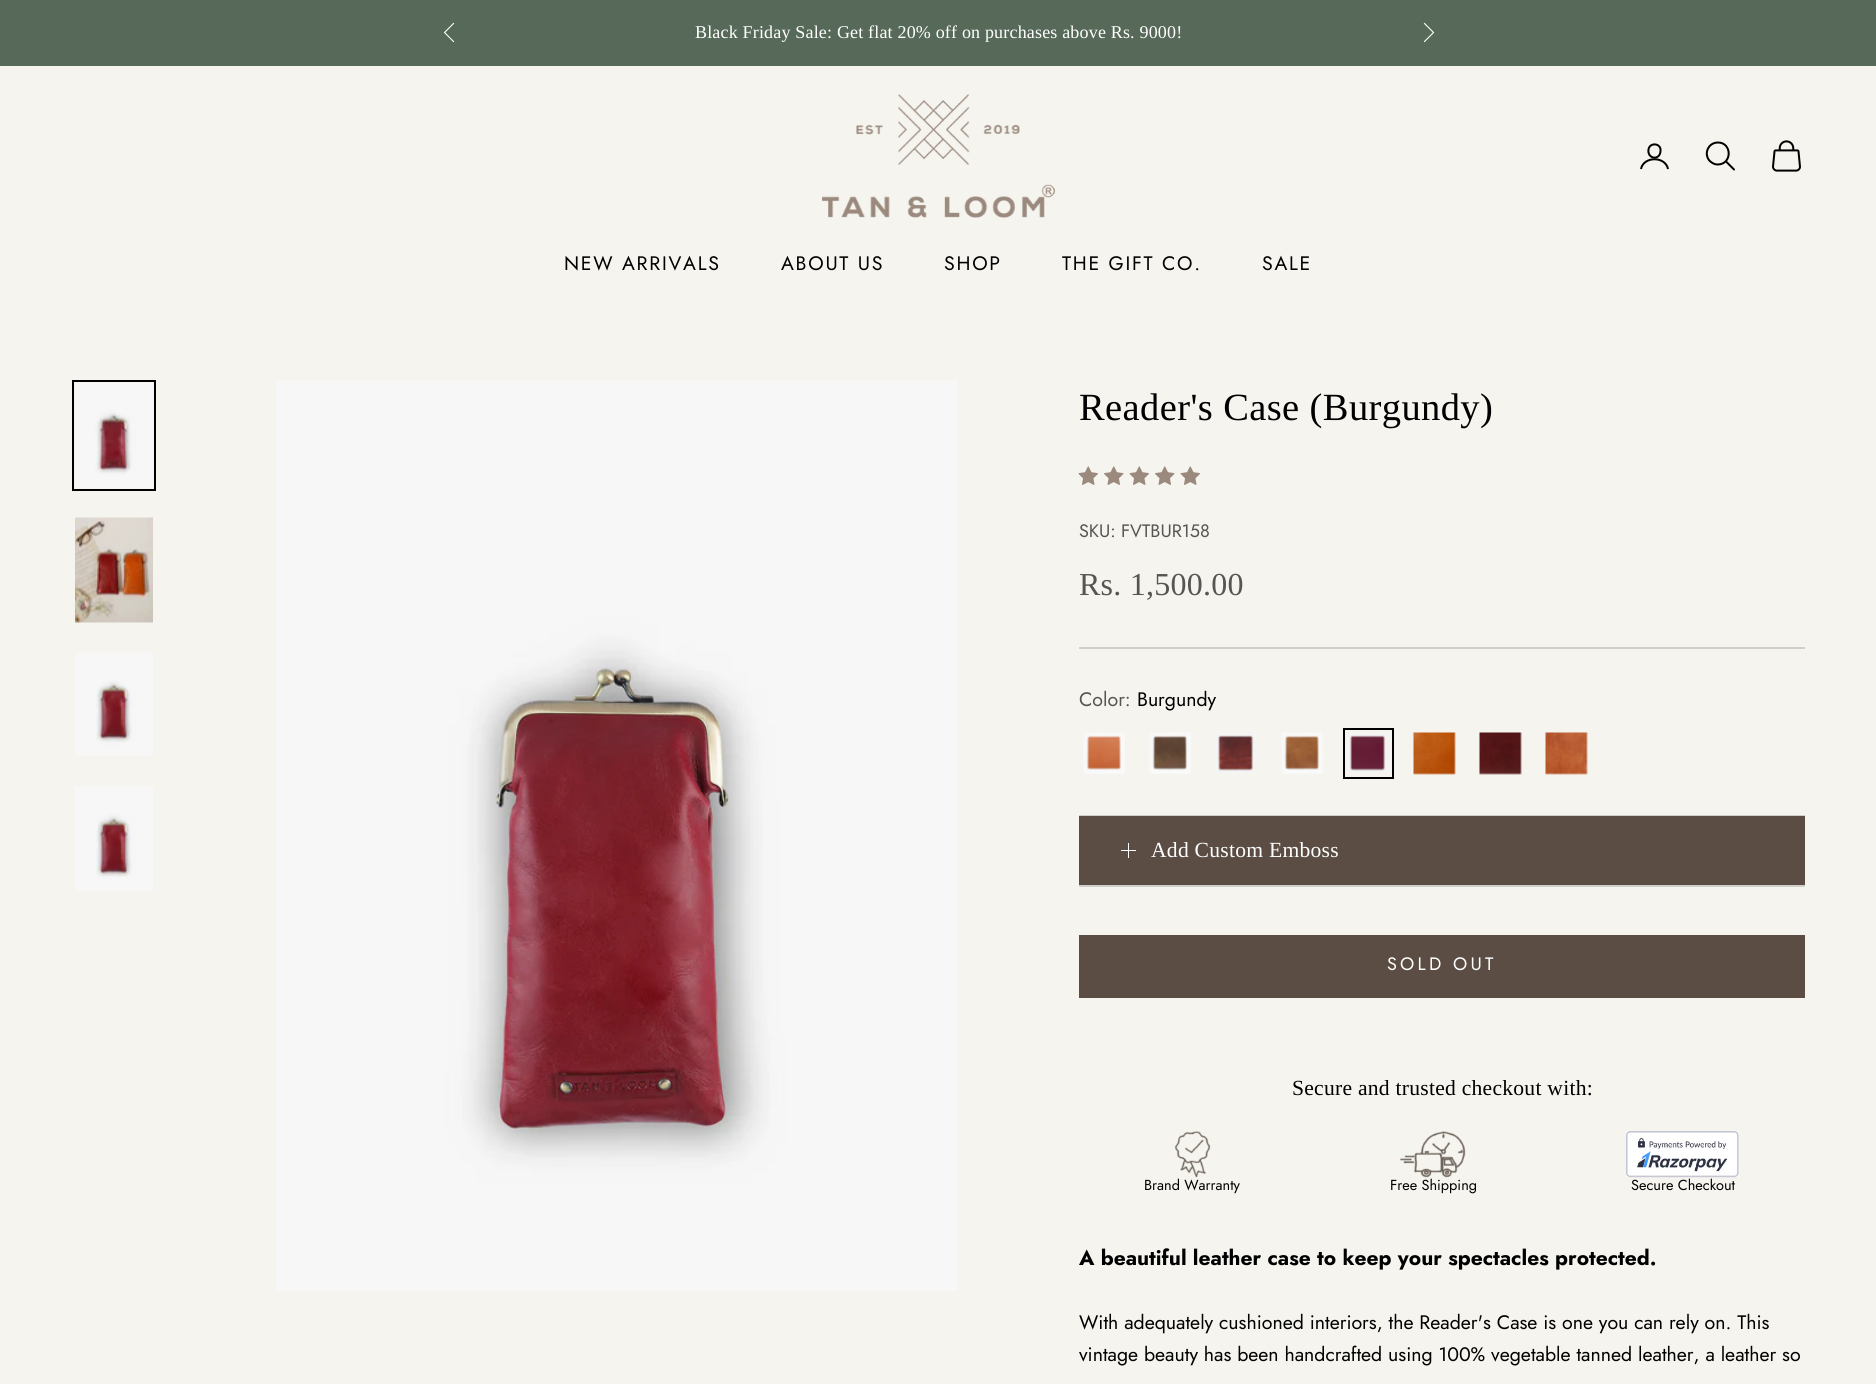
import math
import cairo

surface = cairo.ImageSurface(cairo.FORMAT_RGB24, 1876, 1384)
c = cairo.Context(surface)
options = cairo.FontOptions()
options.set_hint_metrics(cairo.HINT_METRICS_OFF)
options.set_hint_style(cairo.HINT_STYLE_NONE)
c.set_font_options(options)
c.set_miter_limit(4)
def C(code):
 c.set_source_rgb(*(v / 255 for v in bytes.fromhex(code[-6:])))
def F(family, size, italic, bold):
 c.select_font_face(family, cairo.FONT_SLANT_ITALIC if italic else cairo.FONT_SLANT_NORMAL, cairo.FONT_WEIGHT_BOLD if bold else cairo.FONT_WEIGHT_NORMAL)
 c.set_font_size(size)
def T(x, y, s):
 c.move_to(x, y)
 c.show_text(s)
def L(x, y, s, letter, word):
 c.move_to(x, y)
 for ch in s:
  c.show_text(ch)
  c.rel_move_to(letter + word * (ch == ' '), 0)
def R(x, y, w, h):
 c.rectangle(x, y, w, h)
 c.fill()
def I(path, x, y, w, h):
 c.save()
 c.set_source_surface(cairo.ImageSurface.create_from_png(path), x, y)
 c.rectangle(x, y, w, h)
 c.fill()
 c.restore()
C('f5f4ee')
c.paint()
C('576a59')
R(0,0,1876,66)
c.new_path()
c.move_to(453.5,23.5)
c.line_to(444.5,32.5)
c.line_to(453.5,41.5)
C('ffffff')
c.set_line_width(1.1)
c.set_line_cap(cairo.LINE_CAP_SQUARE)
c.stroke()
F('Liberation Serif',18,0,0)
L(695,38,'Black Friday Sale: Get flat 20% off on purchases above Rs. 9000!',.18,0)
c.new_path()
c.move_to(1424.5,41.5)
c.line_to(1433.5,32.5)
c.line_to(1424.5,23.5)
c.stroke()
I('1.png',822,94,233,124)
c.new_path()
c.move_to(1660.5,151)
c.curve_to(1660,161,1647,159,1648.5,149.5)
c.curve_to(1649.5,142,1661.5,143,1660.5,151)
c.close_path()
C('000000')
c.set_line_width(2)
c.set_line_cap(cairo.LINE_CAP_ROUND)
c.set_line_join(cairo.LINE_JOIN_ROUND)
c.stroke()
c.new_path()
c.move_to(1641,169)
c.curve_to(1643.5,156,1665.5,156,1668,169)
c.set_line_cap(cairo.LINE_CAP_BUTT)
c.set_line_join(cairo.LINE_JOIN_MITER)
c.stroke()
c.new_path()
c.move_to(1718,142.5)
c.curve_to(1706.5,142.5,1702.5,157.5,1712.5,163)
c.curve_to(1714,164,1716,164.5,1718,164.5)
c.curve_to(1732.5,164,1732,142.5,1718,142.5)
c.close_path()
c.stroke()
c.new_path()
c.move_to(1726.5,162)
c.line_to(1734,169.5)
c.set_line_cap(cairo.LINE_CAP_ROUND)
c.stroke()
I('2.png',1772,140,29,32)
F('Jost',19.5,0,0)
L(564,270,'NEW ARRIVALS',1.75,0)
L(781,270,'ABOUT US',1.75,0)
L(944,270,'SHOP',1.75,0)
L(1062,270,'THE GIFT CO.',1.75,0)
L(1262,270,'SALE',1.75,0)
c.rectangle(73,381,82,109)
c.set_line_cap(cairo.LINE_CAP_BUTT)
c.stroke()
I('3.png',75,382,78,106)
I('4.png',75,517,78,106)
I('5.png',75,652,78,104)
I('6.png',75,786,78,105)
I('7.png',276,380,682,911)
F('Liberation Serif',38.5,0,0)
L(1079,420,'Reader\'s Case (Burgundy)',.4,0)
I('8.png',1078,466,20,19)
I('9.png',1104,466,20,19)
I('8.png',1129,466,20,19)
I('9.png',1155,466,20,19)
I('8.png',1180,466,20,19)
F('Jost',18,0,0)
C('565553')
T(1079,537,'SKU: FVTBUR158')
F('Liberation Serif',32,0,0)
L(1079,595,'Rs. 1,500.00',.25,0)
C('d0cfca')
R(1079,647,726,2)
F('Jost',19.5,0,0)
C('565553')
T(1079,706,'Color:')
C('000000')
T(1137,706,'Burgundy')
I('10.png',1083,732,42,42)
I('11.png',1149,732,42,42)
I('12.png',1216,732,41,42)
I('13.png',1281,732,42,42)
I('14.png',1348,733,41,41)
c.rectangle(1344,729,49,49)
c.stroke()
I('15.png',1413,732,43,43)
I('16.png',1479,732,43,43)
I('17.png',1545,732,43,43)
C('d0cfca')
R(1079,815,726,1)
R(1079,885,726,2)
C('5b4d43')
R(1079,816,726,69)
C('ffffff')
R(1128,843,1,15)
R(1121,850,15,1)
F('Liberation Serif',21.6,0,0)
L(1151,857,'Add Custom Emboss',.25,0)
C('5b4d43')
c.rectangle(1080,936,724,61)
c.fill_preserve()
c.stroke()
F('Jost',18,0,0)
C('ffffff')
L(1387,970,'SOLD OUT',3.25,0)
F('Liberation Serif',21.6,0,0)
C('000000')
L(1292,1095,'Secure and trusted checkout with:',.25,0)
I('18.png',1174,1131,37,47)
F('Jost',14.5,0,0)
T(1144,1190,'Brand Warranty')
I('19.png',1399,1131,67,47)
T(1390,1190,'Free Shipping')
I('20.png',1626,1131,113,47)
T(1631,1190,'Secure Checkout')
F('Jost',21,0,1)
T(1079,1265,'A beautiful leather case to keep your spectacles protected.')
F('Jost',19.5,0,0)
T(1079,1329,'With adequately cushioned interiors, the Reader\'s Case is one you can rely on. This')
T(1079,1361,'vintage beauty has been handcrafted using 100% vegetable tanned leather, a leather so')
surface.write_to_png('o.png')
